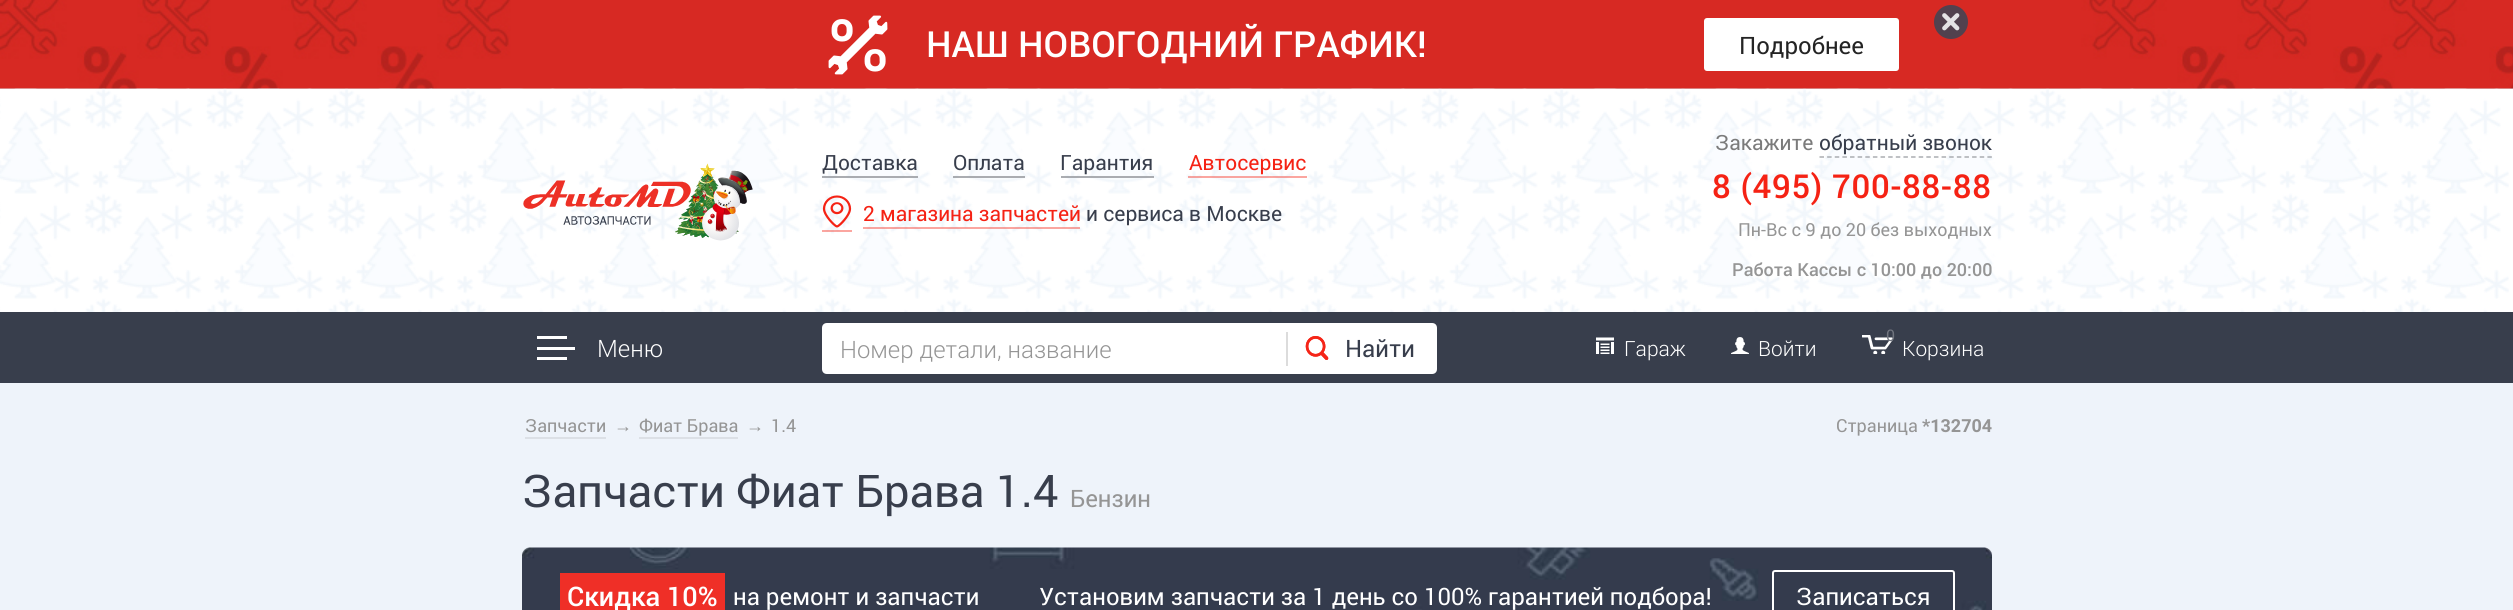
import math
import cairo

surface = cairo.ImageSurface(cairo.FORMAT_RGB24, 2513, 610)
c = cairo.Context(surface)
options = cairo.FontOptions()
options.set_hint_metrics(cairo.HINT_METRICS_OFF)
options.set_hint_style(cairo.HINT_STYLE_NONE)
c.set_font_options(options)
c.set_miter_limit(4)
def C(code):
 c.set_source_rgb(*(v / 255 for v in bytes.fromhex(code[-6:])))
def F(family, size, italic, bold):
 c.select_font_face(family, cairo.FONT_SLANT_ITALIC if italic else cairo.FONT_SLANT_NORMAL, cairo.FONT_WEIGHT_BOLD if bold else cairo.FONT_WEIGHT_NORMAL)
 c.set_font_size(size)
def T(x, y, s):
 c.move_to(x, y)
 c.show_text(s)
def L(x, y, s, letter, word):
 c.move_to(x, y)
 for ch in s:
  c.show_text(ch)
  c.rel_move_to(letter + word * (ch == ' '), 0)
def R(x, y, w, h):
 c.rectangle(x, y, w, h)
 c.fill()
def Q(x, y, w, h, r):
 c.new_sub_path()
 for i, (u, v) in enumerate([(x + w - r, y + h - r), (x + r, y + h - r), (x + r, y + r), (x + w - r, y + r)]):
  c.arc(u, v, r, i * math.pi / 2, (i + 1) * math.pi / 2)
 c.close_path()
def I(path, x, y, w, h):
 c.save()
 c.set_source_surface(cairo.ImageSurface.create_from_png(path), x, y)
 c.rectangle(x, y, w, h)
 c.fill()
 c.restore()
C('eef3fa')
c.paint()
C('d6dbe1')
R(0,88,2513,1)
C('e6e6e6')
R(522,88,237,1)
I('1.png',0,0,2513,89)
I('2.png',828,15,60,60)
F('Roboto Medium',36,0,0)
C('ffffff')
T(926,57,'НАШ НОВОГОДНИЙ ГРАФИК!')
Q(1704,18,195,53,3)
c.fill()
F('Roboto',24,0,0)
C('242424')
T(1739,54,'Подробнее')
C('52414e')
c.new_path()
c.arc(1951,22,17,0,2 * math.pi)
c.fill()
I('3.png',1942,13,18,18)
C('ffffff')
R(0,89,2513,223)
I('4.png',0,88,2509,224)
I('5.png',523,163,230,78)
F('Roboto',21,0,0)
C('383e4c')
T(822,170,'Доставка')
c.set_source_rgba(0.588,0.596,0.62,0.8)
R(822,176,96,2)
C('383e4c')
T(953,170,'Оплата')
c.set_source_rgba(0.588,0.596,0.62,0.8)
R(953,176,72,2)
C('383e4c')
T(1060,170,'Гарантия')
c.set_source_rgba(0.588,0.596,0.62,0.8)
R(1061,176,93,2)
C('f52214')
T(1189,170,'Автосервис')
c.set_source_rgba(0.961,0.133,0.078,0.4)
R(1188,176,119,2)
R(822,230,30,2)
R(863,227,217,2)
I('6.png',822,195,30,33)
C('f52214')
T(863,221,'2 магазина запчастей')
C('383e4c')
T(1086,221,'и сервиса в Москве')
C('7b7b7b')
T(1715,150,'Закажите')
C('383e4c')
T(1819,150,'обратный звонок')
c.new_path()
c.move_to(1819.5,157)
c.line_to(1992,157)
c.set_source_rgba(0.588,0.596,0.62,0.8)
c.set_line_width(1.5)
c.set_dash([4.5,3.13])
c.stroke()
F('Roboto Medium',33,0,0)
C('f52214')
L(1712,198,'8 (495) 700-88-88',.75,0)
F('Roboto',18,0,0)
C('959595')
T(1738,236,'Пн-Вс с 9 до 20 без выходных')
F('Roboto Medium',18,0,0)
T(1732,276,'Работа Кассы с 10:00 до 20:00')
C('383e4c')
R(0,312,2513,71)
C('ffffff')
R(537,347,38,3)
R(537,336,30,3)
R(537,357,30,3)
F('Roboto Light',24,0,0)
T(597,357,'Меню')
c.new_path()
c.move_to(827,323)
c.line_to(1286,323)
c.line_to(1286,374)
c.line_to(827,374)
c.curve_to(824,374,822,372,822,369)
c.line_to(822,328)
c.curve_to(822,325,824,323,827,323)
c.close_path()
c.fill()
C('959595')
T(840,358,'Номер детали, название')
C('ffffff')
c.new_path()
c.move_to(1286,323)
c.line_to(1432,323)
c.curve_to(1435,323,1437,325,1437,328)
c.line_to(1437,369)
c.curve_to(1437,372,1435,374,1432,374)
c.line_to(1286,374)
c.close_path()
c.fill()
C('dcdcdc')
R(1286,332,2,34)
I('7.png',1305,336,24,24)
I('8.png',1305,336,24,24)
F('Roboto',24,0,0)
C('383e4c')
T(1345,357,'Найти')
I('9.png',1596,337,18,17)
F('Roboto Light',21,0,0)
C('ffffff')
T(1624,356,'Гараж')
I('10.png',1731,337,18,17)
T(1758,356,'Войти')
I('11.png',1862,335,31,19)
F('Roboto',16,0,0)
C('71757f')
T(1886,341,'0')
F('Roboto Light',21,0,0)
C('ffffff')
T(1902,356,'Корзина')
F('Roboto',18,0,0)
C('959595')
T(525,432,'Запчасти')
C('dce0e6')
R(525,437,81,2)
F('Liberation Sans',18,0,0)
C('959595')
T(614,432,'→')
F('Roboto',18,0,0)
T(639,432,'Фиат Брава')
C('dce0e6')
R(639,437,99,2)
F('Liberation Sans',18,0,0)
C('959595')
T(746,432,'→')
F('Roboto',18,0,0)
T(771,432,'1.4')
T(1836,432,'Страница')
F('Roboto',18,0,1)
T(1922,432,'*132704')
F('Roboto',45,0,0)
C('383e4c')
T(522,507,'Запчасти Фиат Брава 1.4')
F('Roboto',24,0,0)
C('959595')
T(1070,507,'Бензин')
I('12.png',522,547,1470,63)
C('ef2f27')
R(560,573,165,37)
F('Roboto Medium',27,0,0)
C('ffffff')
T(567,606,'Скидка 10%')
F('Roboto',24,0,0)
T(733,605,'на ремонт и запчасти')
T(1039,605,'Установим запчасти за 1 день со 100% гарантией подбора!')
Q(1773,571,181,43,2)
c.set_line_width(2)
c.set_dash([])
c.stroke()
T(1796,605,'Записаться')
surface.write_to_png('o.png')
